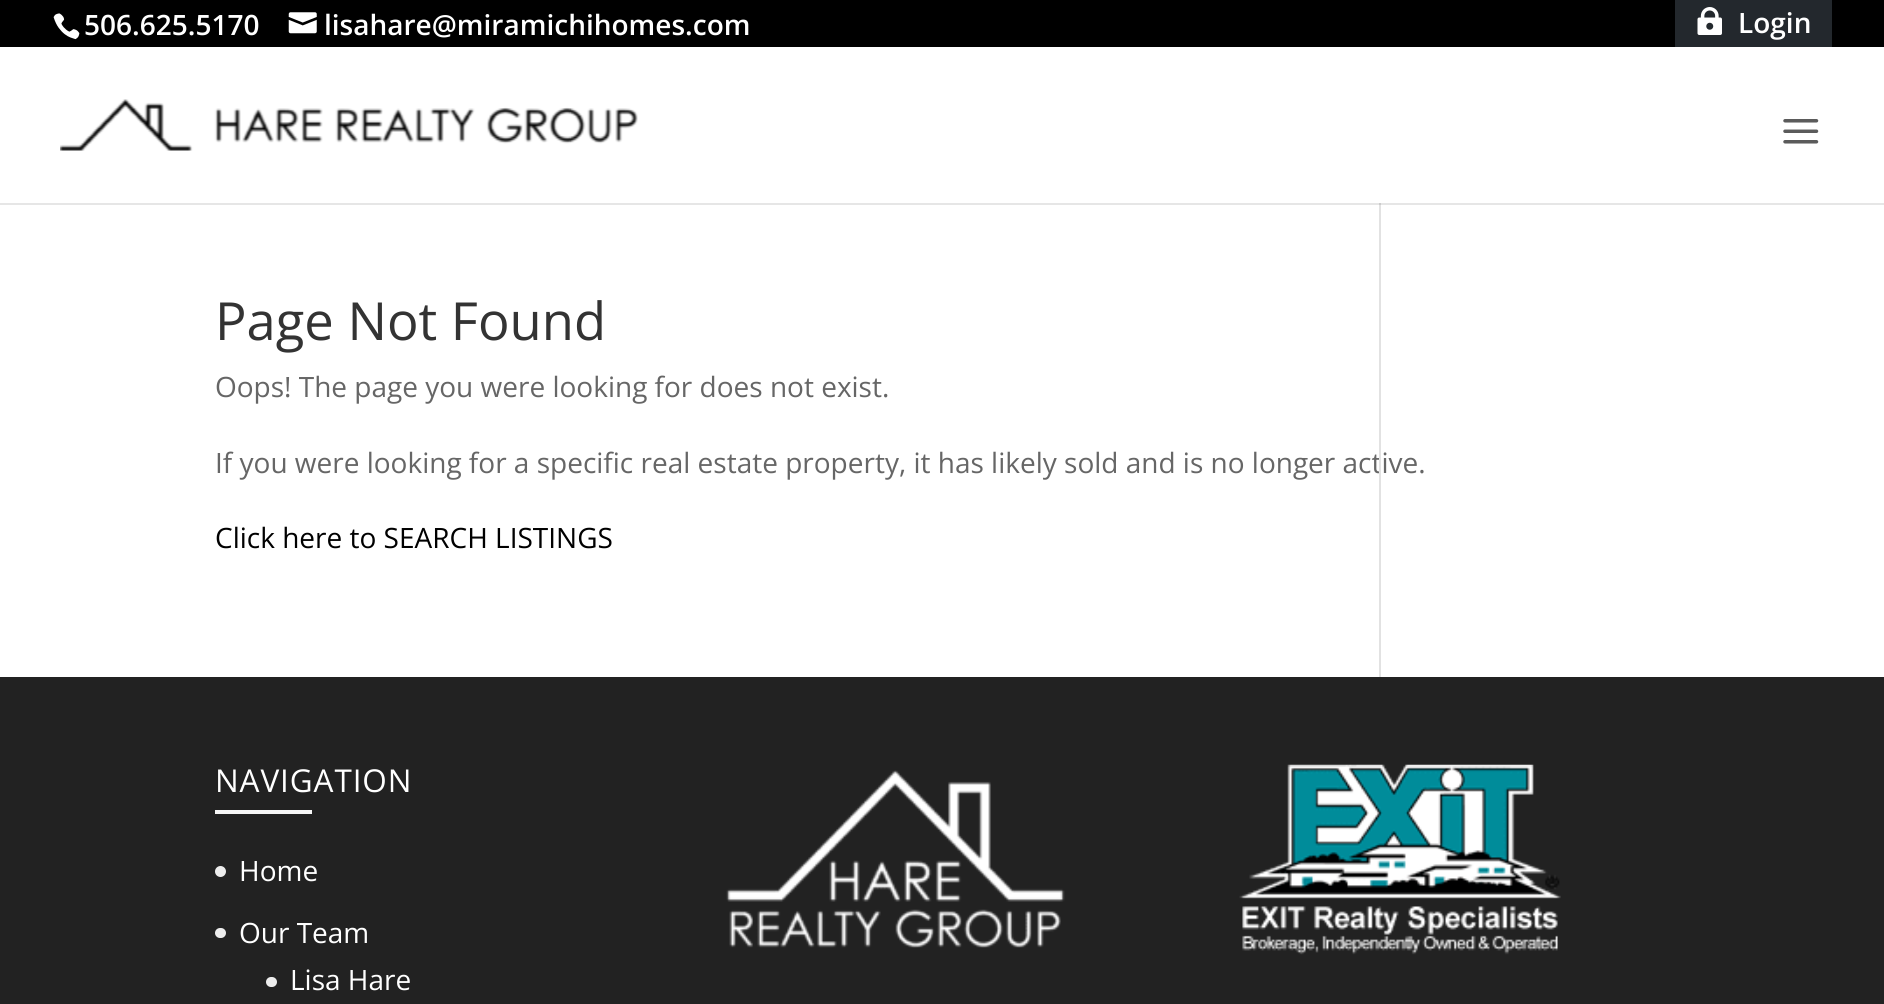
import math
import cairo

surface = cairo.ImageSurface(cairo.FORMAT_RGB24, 1884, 1004)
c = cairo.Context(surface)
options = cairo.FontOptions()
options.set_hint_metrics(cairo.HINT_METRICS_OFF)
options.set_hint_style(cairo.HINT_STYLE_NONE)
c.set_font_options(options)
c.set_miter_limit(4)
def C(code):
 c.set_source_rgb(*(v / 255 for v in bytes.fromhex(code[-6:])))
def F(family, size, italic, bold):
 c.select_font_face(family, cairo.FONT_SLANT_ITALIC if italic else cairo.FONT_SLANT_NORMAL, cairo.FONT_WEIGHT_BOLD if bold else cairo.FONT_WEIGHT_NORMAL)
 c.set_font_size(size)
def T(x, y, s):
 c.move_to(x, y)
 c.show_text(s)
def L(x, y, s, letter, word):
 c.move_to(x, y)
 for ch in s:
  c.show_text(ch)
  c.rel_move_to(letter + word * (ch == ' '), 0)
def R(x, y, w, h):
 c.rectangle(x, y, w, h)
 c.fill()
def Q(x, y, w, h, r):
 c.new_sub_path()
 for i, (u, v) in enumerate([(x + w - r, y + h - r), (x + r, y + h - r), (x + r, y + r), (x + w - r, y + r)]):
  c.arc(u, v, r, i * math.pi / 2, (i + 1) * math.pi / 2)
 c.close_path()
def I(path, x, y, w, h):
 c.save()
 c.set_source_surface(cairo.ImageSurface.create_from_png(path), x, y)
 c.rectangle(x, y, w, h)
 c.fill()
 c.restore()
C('ffffff')
c.paint()
C('000000')
R(0,0,1884,47)
I('1.png',53,13,27,27)
F('Open Sans SemiBold',28,0,0)
C('ffffff')
T(84,35,'506.625.5170')
I('2.png',288,12,29,22)
T(324,35,'lisahare@miramichihomes.com')
C('23282d')
R(1675,0,157,47)
I('3.png',1697,7,25,28)
C('ffffff')
T(1738,33,'Login')
F('Open Sans',28,0,0)
C('666666')
T(215,473,'If you were looking for a specific real estate property, it has likely sold and is no longer active.')
C('e2e2e2')
R(1379,203,2,474)
c.set_source_rgba(0,0,0,0.1)
c.new_path()
c.move_to(0,203)
c.line_to(0,205)
c.line_to(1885,205)
c.line_to(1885,49)
c.line_to(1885,203)
c.close_path()
c.fill()
I('4.png',60,99,578,52)
I('5.png',1783,119,36,25)
F('Open Sans',52.5,0,0)
C('333333')
T(215,340,'Page Not Found')
F('Open Sans',28,0,0)
C('666666')
T(215,397,'Oops! The page you were looking for does not exist.')
C('000000')
T(215,548,'Click here to SEARCH LISTINGS')
C('222222')
R(0,677,1884,327)
F('Open Sans',31.5,0,0)
C('ffffff')
L(215,792,'NAVIGATION',.9,0)
C('f7f7f7')
R(215,810,97,4)
C('ededed')
c.new_path()
c.arc(220.5,871.5,5.5,0,2 * math.pi)
c.fill()
F('Open Sans',28,0,0)
C('ffffff')
T(239,881,'Home')
C('ededed')
Q(215,928,11,10,5)
c.fill()
C('ffffff')
T(239,943,'Our Team')
C('ededed')
Q(266,977,11,10,5)
c.fill()
C('ffffff')
T(290,990,'Lisa Hare')
I('6.png',726,770,339,178)
I('7.png',1239,764,322,191)
surface.write_to_png('o.png')
